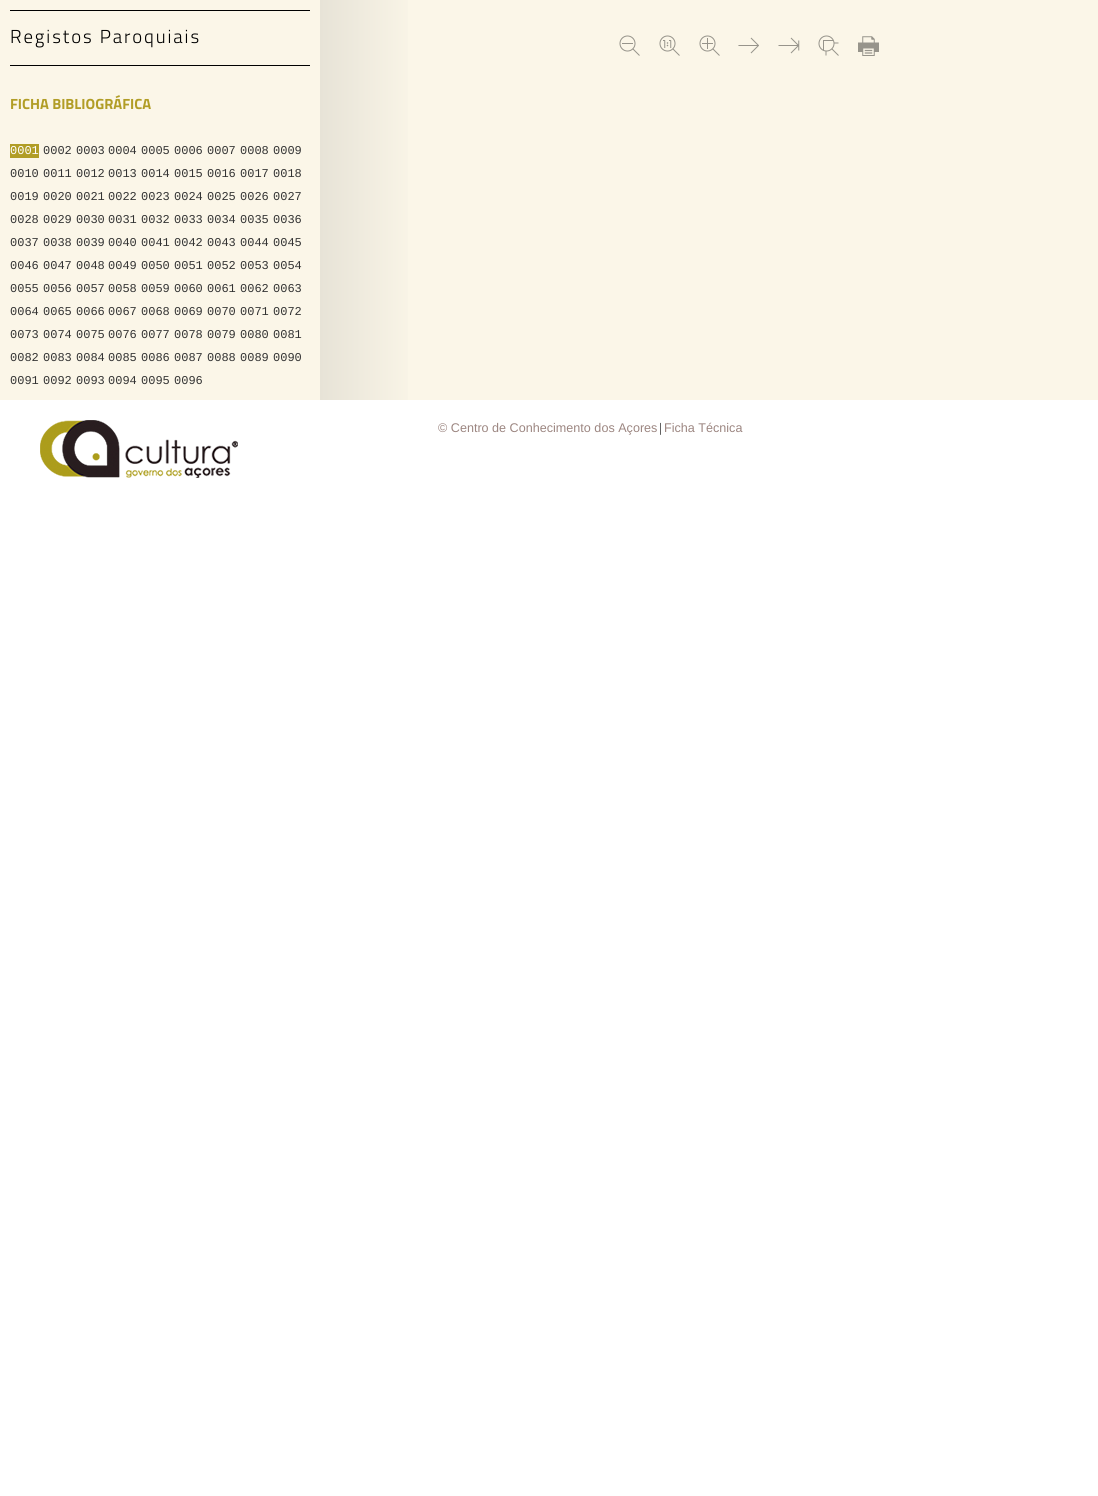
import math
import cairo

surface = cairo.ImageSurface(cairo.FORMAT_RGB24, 1098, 1496)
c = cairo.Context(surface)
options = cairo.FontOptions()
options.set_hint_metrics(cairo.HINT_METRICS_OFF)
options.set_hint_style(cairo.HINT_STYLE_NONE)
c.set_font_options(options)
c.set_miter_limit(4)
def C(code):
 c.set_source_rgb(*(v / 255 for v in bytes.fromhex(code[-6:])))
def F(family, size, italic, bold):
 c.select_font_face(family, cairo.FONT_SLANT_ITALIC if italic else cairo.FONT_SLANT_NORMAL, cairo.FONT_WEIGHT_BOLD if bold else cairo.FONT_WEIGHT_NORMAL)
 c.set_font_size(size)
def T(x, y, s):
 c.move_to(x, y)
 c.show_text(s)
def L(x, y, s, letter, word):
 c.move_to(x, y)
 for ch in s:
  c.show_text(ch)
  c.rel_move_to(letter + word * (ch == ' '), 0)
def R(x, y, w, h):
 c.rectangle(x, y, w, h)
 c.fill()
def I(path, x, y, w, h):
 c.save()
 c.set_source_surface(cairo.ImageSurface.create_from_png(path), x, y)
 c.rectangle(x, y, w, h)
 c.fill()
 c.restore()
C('ffffff')
c.paint()
C('fbf6e8')
R(0,0,1098,400)
C('000000')
R(10,10,300,1)
R(10,65,300,1)
F('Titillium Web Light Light',18.8,0,0)
L(10,43,'Registos Paroquiais',1.9,0)
F('Titillium Web',14.75,0,1)
C('b19d26')
T(10,109,'FICHA BIBLIOGRÁFICA')
R(10,144,29,14)
F('Liberation Mono',12,0,0)
C('ffffff')
T(10,154,'0001')
C('333333')
T(43,154,'0002')
T(76,154,'0003')
T(108,154,'0004')
T(141,154,'0005')
T(174,154,'0006')
T(207,154,'0007')
T(240,154,'0008')
T(273,154,'0009')
T(10,177,'0010')
T(43,177,'0011')
T(76,177,'0012')
T(108,177,'0013')
T(141,177,'0014')
T(174,177,'0015')
T(207,177,'0016')
T(240,177,'0017')
T(273,177,'0018')
T(10,200,'0019')
T(43,200,'0020')
T(76,200,'0021')
T(108,200,'0022')
T(141,200,'0023')
T(174,200,'0024')
T(207,200,'0025')
T(240,200,'0026')
T(273,200,'0027')
T(10,223,'0028')
T(43,223,'0029')
T(76,223,'0030')
T(108,223,'0031')
T(141,223,'0032')
T(174,223,'0033')
T(207,223,'0034')
T(240,223,'0035')
T(273,223,'0036')
T(10,246,'0037')
T(43,246,'0038')
T(76,246,'0039')
T(108,246,'0040')
T(141,246,'0041')
T(174,246,'0042')
T(207,246,'0043')
T(240,246,'0044')
T(273,246,'0045')
T(10,269,'0046')
T(43,269,'0047')
T(76,269,'0048')
T(108,269,'0049')
T(141,269,'0050')
T(174,269,'0051')
T(207,269,'0052')
T(240,269,'0053')
T(273,269,'0054')
T(10,292,'0055')
T(43,292,'0056')
T(76,292,'0057')
T(108,292,'0058')
T(141,292,'0059')
T(174,292,'0060')
T(207,292,'0061')
T(240,292,'0062')
T(273,292,'0063')
T(10,315,'0064')
T(43,315,'0065')
T(76,315,'0066')
T(108,315,'0067')
T(141,315,'0068')
T(174,315,'0069')
T(207,315,'0070')
T(240,315,'0071')
T(273,315,'0072')
T(10,338,'0073')
T(43,338,'0074')
T(76,338,'0075')
T(108,338,'0076')
T(141,338,'0077')
T(174,338,'0078')
T(207,338,'0079')
T(240,338,'0080')
T(273,338,'0081')
T(10,361,'0082')
T(43,361,'0083')
T(76,361,'0084')
T(108,361,'0085')
T(141,361,'0086')
T(174,361,'0087')
T(207,361,'0088')
T(240,361,'0089')
T(273,361,'0090')
T(10,384,'0091')
T(43,384,'0092')
T(76,384,'0093')
T(108,384,'0094')
T(141,384,'0095')
T(174,384,'0096')
gradient = cairo.LinearGradient(320,200,420,200)
gradient.add_color_stop_rgba(0,0.906,0.89,0.843,1)
gradient.add_color_stop_rgba(1,0.984,0.965,0.91,1)
c.set_source(gradient)
R(320,0,88,400)
I('1.png',619,35,21,21)
I('2.png',659,35,21,21)
I('3.png',699,35,21,21)
I('4.png',738,37,21,17)
I('5.png',778,37,22,17)
I('6.png',818,35,21,21)
I('7.png',858,36,21,20)
I('8.png',40,420,198,58)
F('Liberation Sans',12.6,0,0)
C('9c8681')
T(438,432,'© Centro de Conhecimento dos Açores')
F('Titillium Web Light Light',12.6,0,0)
C('333333')
T(659,432,'|')
F('Liberation Sans',12.6,0,0)
C('9c8681')
T(664,432,'Ficha Técnica')
surface.write_to_png('o.png')
